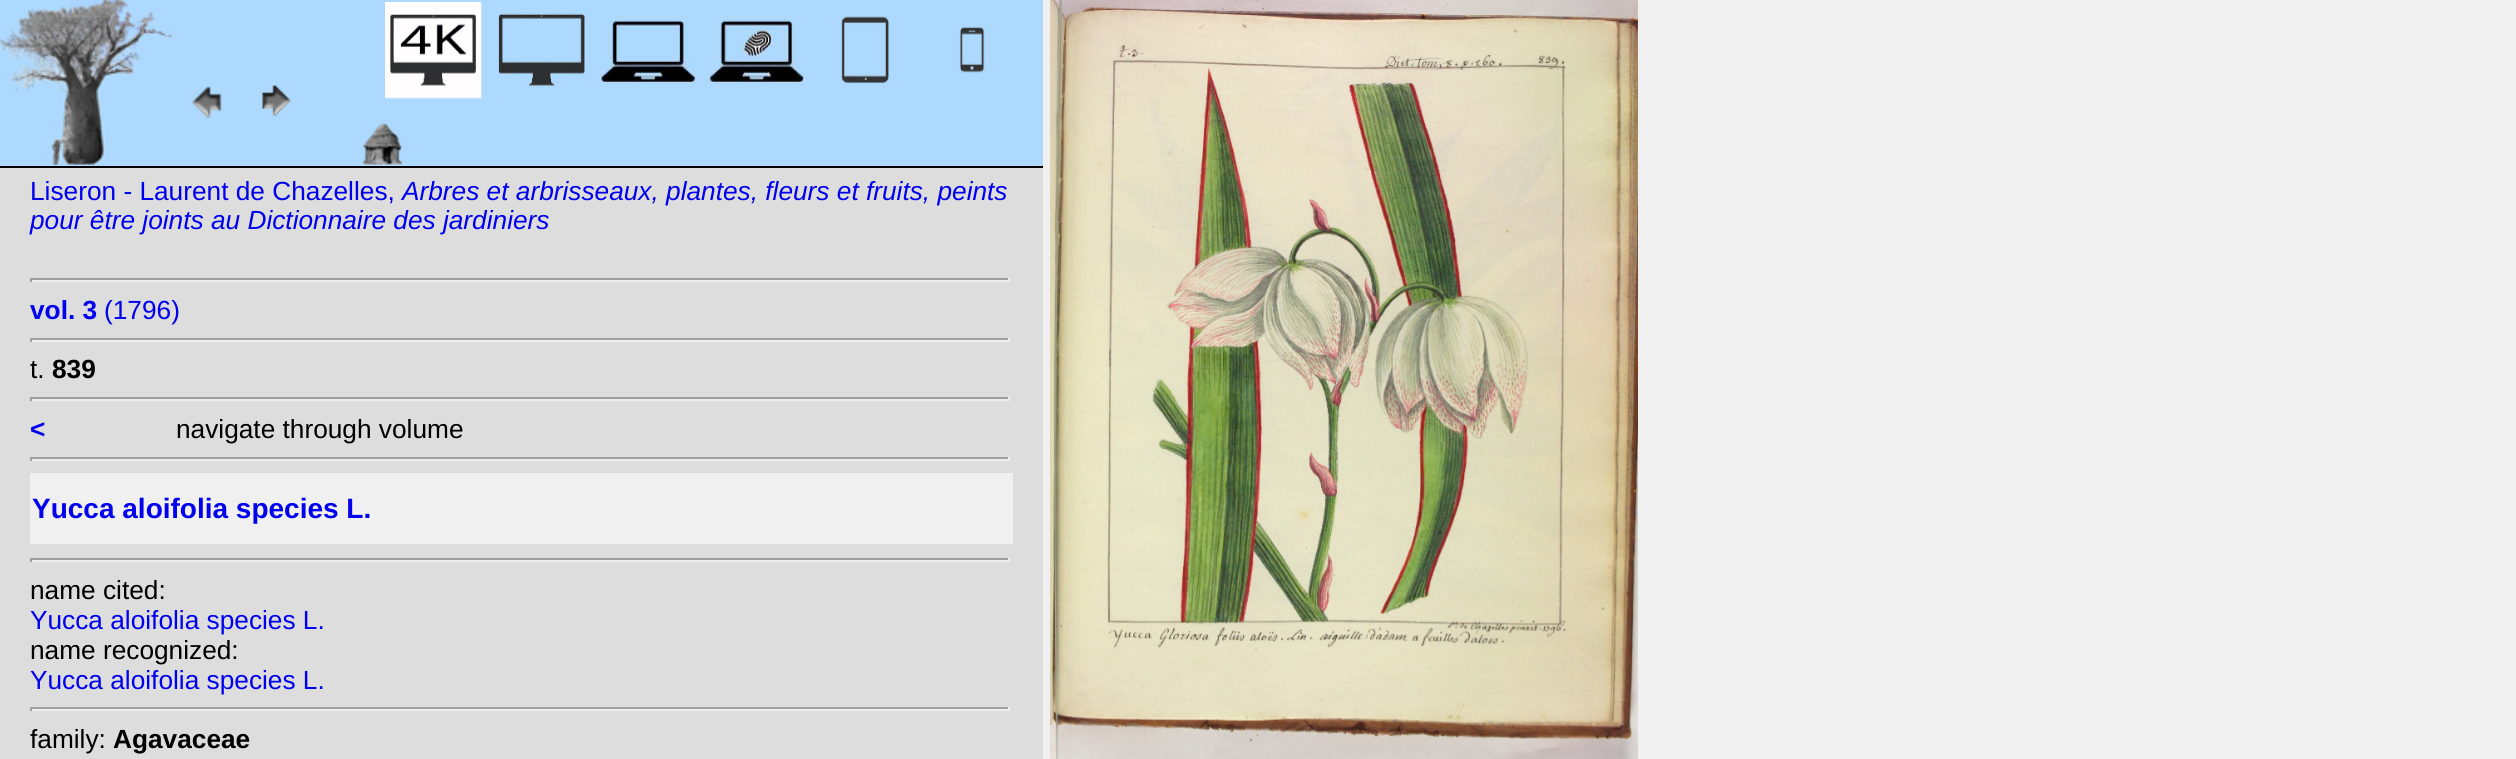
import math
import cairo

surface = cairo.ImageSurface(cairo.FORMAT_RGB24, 2516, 759)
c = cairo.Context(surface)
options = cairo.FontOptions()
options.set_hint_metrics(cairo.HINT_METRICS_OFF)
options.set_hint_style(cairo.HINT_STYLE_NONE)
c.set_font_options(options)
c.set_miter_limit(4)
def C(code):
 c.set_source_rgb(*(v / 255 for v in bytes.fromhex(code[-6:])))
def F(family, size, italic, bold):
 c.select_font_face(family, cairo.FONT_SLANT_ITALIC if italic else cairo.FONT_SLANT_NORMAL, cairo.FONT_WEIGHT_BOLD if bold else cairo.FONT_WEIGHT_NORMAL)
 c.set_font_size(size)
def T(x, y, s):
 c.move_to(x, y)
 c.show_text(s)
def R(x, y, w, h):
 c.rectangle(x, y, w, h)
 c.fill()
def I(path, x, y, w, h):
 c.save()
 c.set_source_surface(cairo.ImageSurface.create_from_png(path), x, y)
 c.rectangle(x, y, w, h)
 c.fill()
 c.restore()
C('f0f0f0')
c.paint()
C('dddddd')
R(0,168,1043,591)
C('add9fe')
R(0,0,1043,166)
C('000000')
R(0,166,1043,2)
I('1.png',0,0,175,165)
I('2.png',191,86,31,33)
I('3.png',262,85,29,31)
I('4.png',385,2,97,97)
I('5.png',498,13,87,74)
I('6.png',600,16,97,67)
I('7.png',708,16,97,67)
I('8.png',841,16,48,68)
I('9.png',958,27,27,46)
I('10.png',362,123,41,42)
F('Liberation Sans',26.25,0,0)
C('0000ee')
T(30,200,'Liseron - Laurent de Chazelles,')
F('Liberation Sans',26.25,1,0)
T(402,200,'Arbres et arbrisseaux, plantes, fleurs et fruits, peints')
T(30,229,'pour être joints au Dictionnaire des jardiniers')
C('9f9f9f')
R(30,278,980,2)
C('eeeeee')
R(1008,278,2,4)
R(30,280,980,2)
C('9f9f9f')
R(30,278,2,4)
F('Liberation Sans',26.25,0,1)
C('0000ee')
T(30,319,'vol. 3')
F('Liberation Sans',26.25,0,0)
T(104,319,'(1796)')
C('9f9f9f')
R(30,338,980,2)
C('eeeeee')
R(1008,338,2,4)
R(30,340,980,2)
C('9f9f9f')
R(30,338,2,4)
C('000000')
T(30,378,'t.')
F('Liberation Sans',26.25,0,1)
T(52,378,'839')
C('9f9f9f')
R(30,397,980,2)
C('eeeeee')
R(1008,397,2,4)
R(30,399,980,2)
C('9f9f9f')
R(30,397,2,4)
C('0000ee')
T(30,438,'<')
F('Liberation Sans',26.25,0,0)
C('000000')
T(176,438,'navigate through volume')
C('9f9f9f')
R(30,457,980,2)
C('eeeeee')
R(1008,457,2,4)
R(30,459,980,2)
C('9f9f9f')
R(30,457,2,4)
C('f0f0f0')
R(30,473,983,71)
F('Liberation Sans',28,0,1)
C('0000ee')
T(32,518,'Yucca aloifolia species L.')
C('9f9f9f')
R(30,558,980,2)
C('eeeeee')
R(1008,558,2,4)
R(30,560,980,2)
C('9f9f9f')
R(30,558,2,4)
F('Liberation Sans',26.25,0,0)
C('000000')
T(30,599,'name cited:')
C('0000ee')
T(30,629,'Yucca aloifolia species L.')
C('000000')
T(30,659,'name recognized:')
C('0000ee')
T(30,689,'Yucca aloifolia species L.')
C('9f9f9f')
R(30,707,980,2)
C('eeeeee')
R(1008,707,2,4)
R(30,709,980,2)
C('9f9f9f')
R(30,707,2,4)
C('000000')
T(30,748,'family:')
F('Liberation Sans',26.25,0,1)
T(113,748,'Agavaceae')
I('11.png',1050,0,588,759)
surface.write_to_png('o.png')
